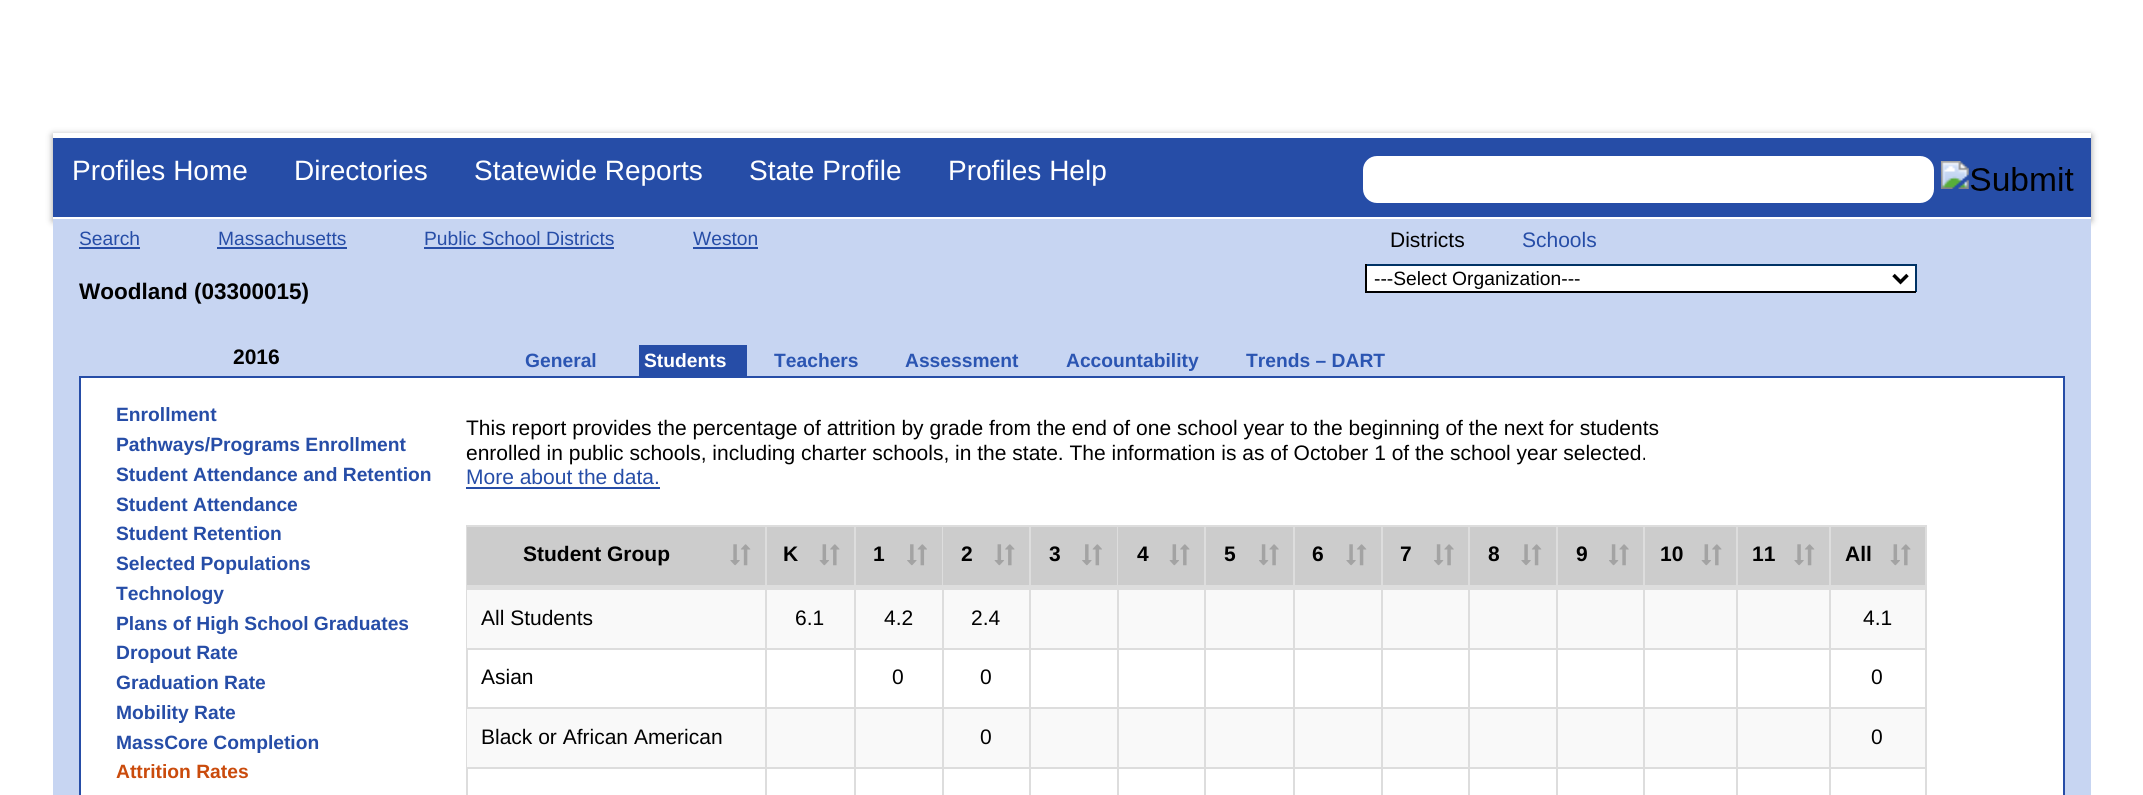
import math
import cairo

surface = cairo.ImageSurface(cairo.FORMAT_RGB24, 2143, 795)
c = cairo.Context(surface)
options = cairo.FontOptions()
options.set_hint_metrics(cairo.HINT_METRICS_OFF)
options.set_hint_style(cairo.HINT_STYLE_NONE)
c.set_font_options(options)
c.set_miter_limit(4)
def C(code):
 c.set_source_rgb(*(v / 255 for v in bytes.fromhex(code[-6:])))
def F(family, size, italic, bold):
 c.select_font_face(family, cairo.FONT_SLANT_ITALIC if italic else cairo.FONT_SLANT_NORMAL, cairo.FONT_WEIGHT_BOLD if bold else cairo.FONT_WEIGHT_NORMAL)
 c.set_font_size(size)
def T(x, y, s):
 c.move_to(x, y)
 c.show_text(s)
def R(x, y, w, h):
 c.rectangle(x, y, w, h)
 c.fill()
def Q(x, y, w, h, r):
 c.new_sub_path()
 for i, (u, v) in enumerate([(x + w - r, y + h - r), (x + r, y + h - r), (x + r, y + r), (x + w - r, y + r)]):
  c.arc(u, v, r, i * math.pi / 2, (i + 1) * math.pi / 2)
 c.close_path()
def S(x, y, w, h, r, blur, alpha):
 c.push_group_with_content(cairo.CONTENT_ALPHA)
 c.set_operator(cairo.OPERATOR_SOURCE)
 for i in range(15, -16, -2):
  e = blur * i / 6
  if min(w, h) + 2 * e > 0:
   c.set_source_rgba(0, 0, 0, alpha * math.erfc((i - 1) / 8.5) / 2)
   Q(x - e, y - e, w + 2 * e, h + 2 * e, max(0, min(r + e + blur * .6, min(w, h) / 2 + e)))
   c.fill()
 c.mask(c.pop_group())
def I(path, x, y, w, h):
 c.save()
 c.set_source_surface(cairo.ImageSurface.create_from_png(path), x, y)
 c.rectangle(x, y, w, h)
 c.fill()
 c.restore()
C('ffffff')
c.paint()
C('9c9c9c')
S(53,135,2038,86,0,3.5,1)
C('264da7')
R(53,138,2038,79)
C('ffffff')
R(53,133,2038,5)
R(53,217,2038,2)
F('Liberation Sans',28,0,0)
T(72,180,'Profiles Home')
T(294,180,'Directories')
T(474,180,'Statewide Reports')
T(749,180,'State Profile')
T(948,180,'Profiles Help')
Q(1363,156,571,47,14)
c.fill()
I('1.png',1940,161,134,30)
C('c7d5f2')
R(53,219,2038,576)
F('Liberation Sans',19.25,0,0)
C('264da7')
T(79,245,'Search')
R(79,247,61,2)
T(218,245,'Massachusetts')
R(217,247,130,2)
T(424,245,'Public School Districts')
R(424,247,190,2)
T(693,245,'Weston')
R(693,247,65,2)
F('Liberation Sans',22.5,0,1)
C('000000')
T(79,299,'Woodland (03300015)')
F('Liberation Sans',21,0,0)
T(1390,247,'Districts')
C('264da7')
T(1522,247,'Schools')
C('ffffff')
R(1367,266,548,25)
C('003366')
R(1365,264,551,2)
R(1915,264,2,28)
C('000000')
R(1365,291,551,2)
R(1365,264,2,28)
c.new_path()
c.move_to(1893.5,275)
c.line_to(1900.5,282)
c.line_to(1907.5,275)
c.set_line_width(3.5)
c.stroke()
F('Liberation Sans',19.25,0,0)
T(1374,285,'---Select Organization---')
F('Liberation Sans',21,0,1)
T(233,364,'2016')
F('Liberation Sans',19.25,0,1)
C('2b55b2')
T(525,367,'General')
C('264da7')
R(639,345,108,31)
C('ffffff')
T(644,367,'Students')
C('2b55b2')
T(774,367,'Teachers')
T(905,367,'Assessment')
T(1066,367,'Accountability')
T(1246,367,'Trends – DART')
C('ffffff')
c.rectangle(80,377,1984,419)
c.fill_preserve()
C('264da7')
c.set_line_width(2)
c.stroke()
T(116,421,'Enrollment')
T(116,451,'Pathways/Programs Enrollment')
T(116,481,'Student Attendance and Retention')
T(116,511,'Student Attendance')
T(116,540,'Student Retention')
T(116,570,'Selected Populations')
T(116,600,'Technology')
T(116,630,'Plans of High School Graduates')
T(116,659,'Dropout Rate')
T(116,689,'Graduation Rate')
T(116,719,'Mobility Rate')
T(116,749,'MassCore Completion')
C('ca4b0c')
T(116,778,'Attrition Rates')
F('Liberation Sans',21,0,0)
C('000000')
T(466,435,'This report provides the percentage of attrition by grade from the end of one school year to the beginning of the next for students')
T(466,460,'enrolled in public schools, including charter schools, in the state. The information is as of October 1 of the school year selected.')
C('264da7')
T(466,484,'More about the data.')
R(466,487,194,2)
c.rectangle(467,526,1459,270)
C('dddddd')
c.stroke()
C('cccccc')
R(467,527,298,58)
C('f9f9f9')
R(467,590,1458,58)
C('dddddd')
R(467,589,476,1)
R(765,527,2,121)
R(854,527,2,121)
R(467,585,389,4)
F('Liberation Sans',21,0,1)
C('000000')
T(523,561,'Student Group')
I('2.png',730,544,21,22)
C('cccccc')
R(767,527,87,58)
C('000000')
T(783,561,'K')
I('3.png',819,544,21,22)
C('cccccc')
R(856,527,86,58)
C('dddddd')
R(942,527,1,61)
R(942,588,2,60)
R(943,589,175,1)
R(1029,527,2,121)
R(856,585,175,4)
C('000000')
T(873,561,'1')
I('4.png',907,544,20,22)
C('cccccc')
R(943,527,86,58)
C('000000')
T(961,561,'2')
I('3.png',994,544,21,22)
C('cccccc')
R(1031,527,86,58)
C('dddddd')
R(1117,527,1,61)
R(1117,588,2,60)
R(1118,589,807,1)
R(1204,527,2,121)
R(1293,527,2,121)
R(1381,527,2,121)
R(1468,527,2,121)
R(1556,527,2,121)
R(1643,527,2,121)
R(1736,527,2,121)
R(1829,527,2,121)
R(1031,585,894,4)
C('000000')
T(1049,561,'3')
I('4.png',1082,544,20,22)
C('cccccc')
R(1118,527,86,58)
C('000000')
T(1137,561,'4')
I('3.png',1169,544,21,22)
C('cccccc')
R(1206,527,87,58)
C('000000')
T(1224,561,'5')
I('5.png',1259,544,20,22)
C('cccccc')
R(1295,527,86,58)
C('000000')
T(1312,561,'6')
I('2.png',1346,544,21,22)
C('cccccc')
R(1383,527,85,58)
C('000000')
T(1400,561,'7')
I('5.png',1434,544,20,22)
C('cccccc')
R(1470,527,86,58)
C('000000')
T(1488,561,'8')
I('2.png',1521,544,21,22)
C('cccccc')
R(1558,527,85,58)
C('000000')
T(1576,561,'9')
I('5.png',1609,544,20,22)
C('cccccc')
R(1645,527,91,58)
C('000000')
T(1660,561,'10')
I('3.png',1701,544,21,22)
C('cccccc')
R(1738,527,91,58)
C('000000')
T(1752,561,'11')
I('2.png',1794,544,21,22)
C('cccccc')
R(1831,527,94,58)
C('000000')
T(1845,561,'All')
I('3.png',1890,544,21,22)
F('Liberation Sans',21,0,0)
T(481,625,'All Students')
T(795,625,'6.1')
T(884,625,'4.2')
T(971,625,'2.4')
T(1863,625,'4.1')
C('dddddd')
R(467,648,476,2)
R(854,648,2,59)
R(942,648,2,59)
R(943,648,175,2)
R(1117,648,2,59)
R(1118,648,807,2)
R(1204,648,2,59)
R(765,648,2,59)
C('000000')
T(481,684,'Asian')
T(892,684,'0')
C('dddddd')
R(1029,648,2,59)
C('000000')
T(980,684,'0')
C('dddddd')
R(1293,648,2,59)
R(1381,648,2,59)
R(1468,648,2,59)
R(1556,648,2,59)
R(1643,648,2,59)
R(1736,648,2,59)
R(1829,648,2,59)
C('000000')
T(1871,684,'0')
C('f9f9f9')
R(467,709,1458,58)
C('dddddd')
R(467,707,476,2)
R(854,707,2,60)
R(942,707,2,60)
R(943,707,175,2)
R(1117,707,2,60)
R(1118,707,807,2)
R(1204,707,2,60)
R(765,707,2,60)
C('000000')
T(481,744,'Black or African American')
C('dddddd')
R(1029,707,2,60)
C('000000')
T(980,744,'0')
C('dddddd')
R(1293,707,2,60)
R(1381,707,2,60)
R(1468,707,2,60)
R(1556,707,2,60)
R(1643,707,2,60)
R(1736,707,2,60)
R(1829,707,2,60)
C('000000')
T(1871,744,'0')
C('dddddd')
R(467,767,476,2)
R(765,767,2,28)
R(854,767,2,28)
R(942,767,2,28)
R(943,767,175,2)
R(1029,767,2,28)
R(1117,767,2,28)
R(1118,767,807,2)
R(1204,767,2,28)
R(1293,767,2,28)
R(1381,767,2,28)
R(1468,767,2,28)
R(1556,767,2,28)
R(1643,767,2,28)
R(1736,767,2,28)
R(1829,767,2,28)
surface.write_to_png('o.png')
